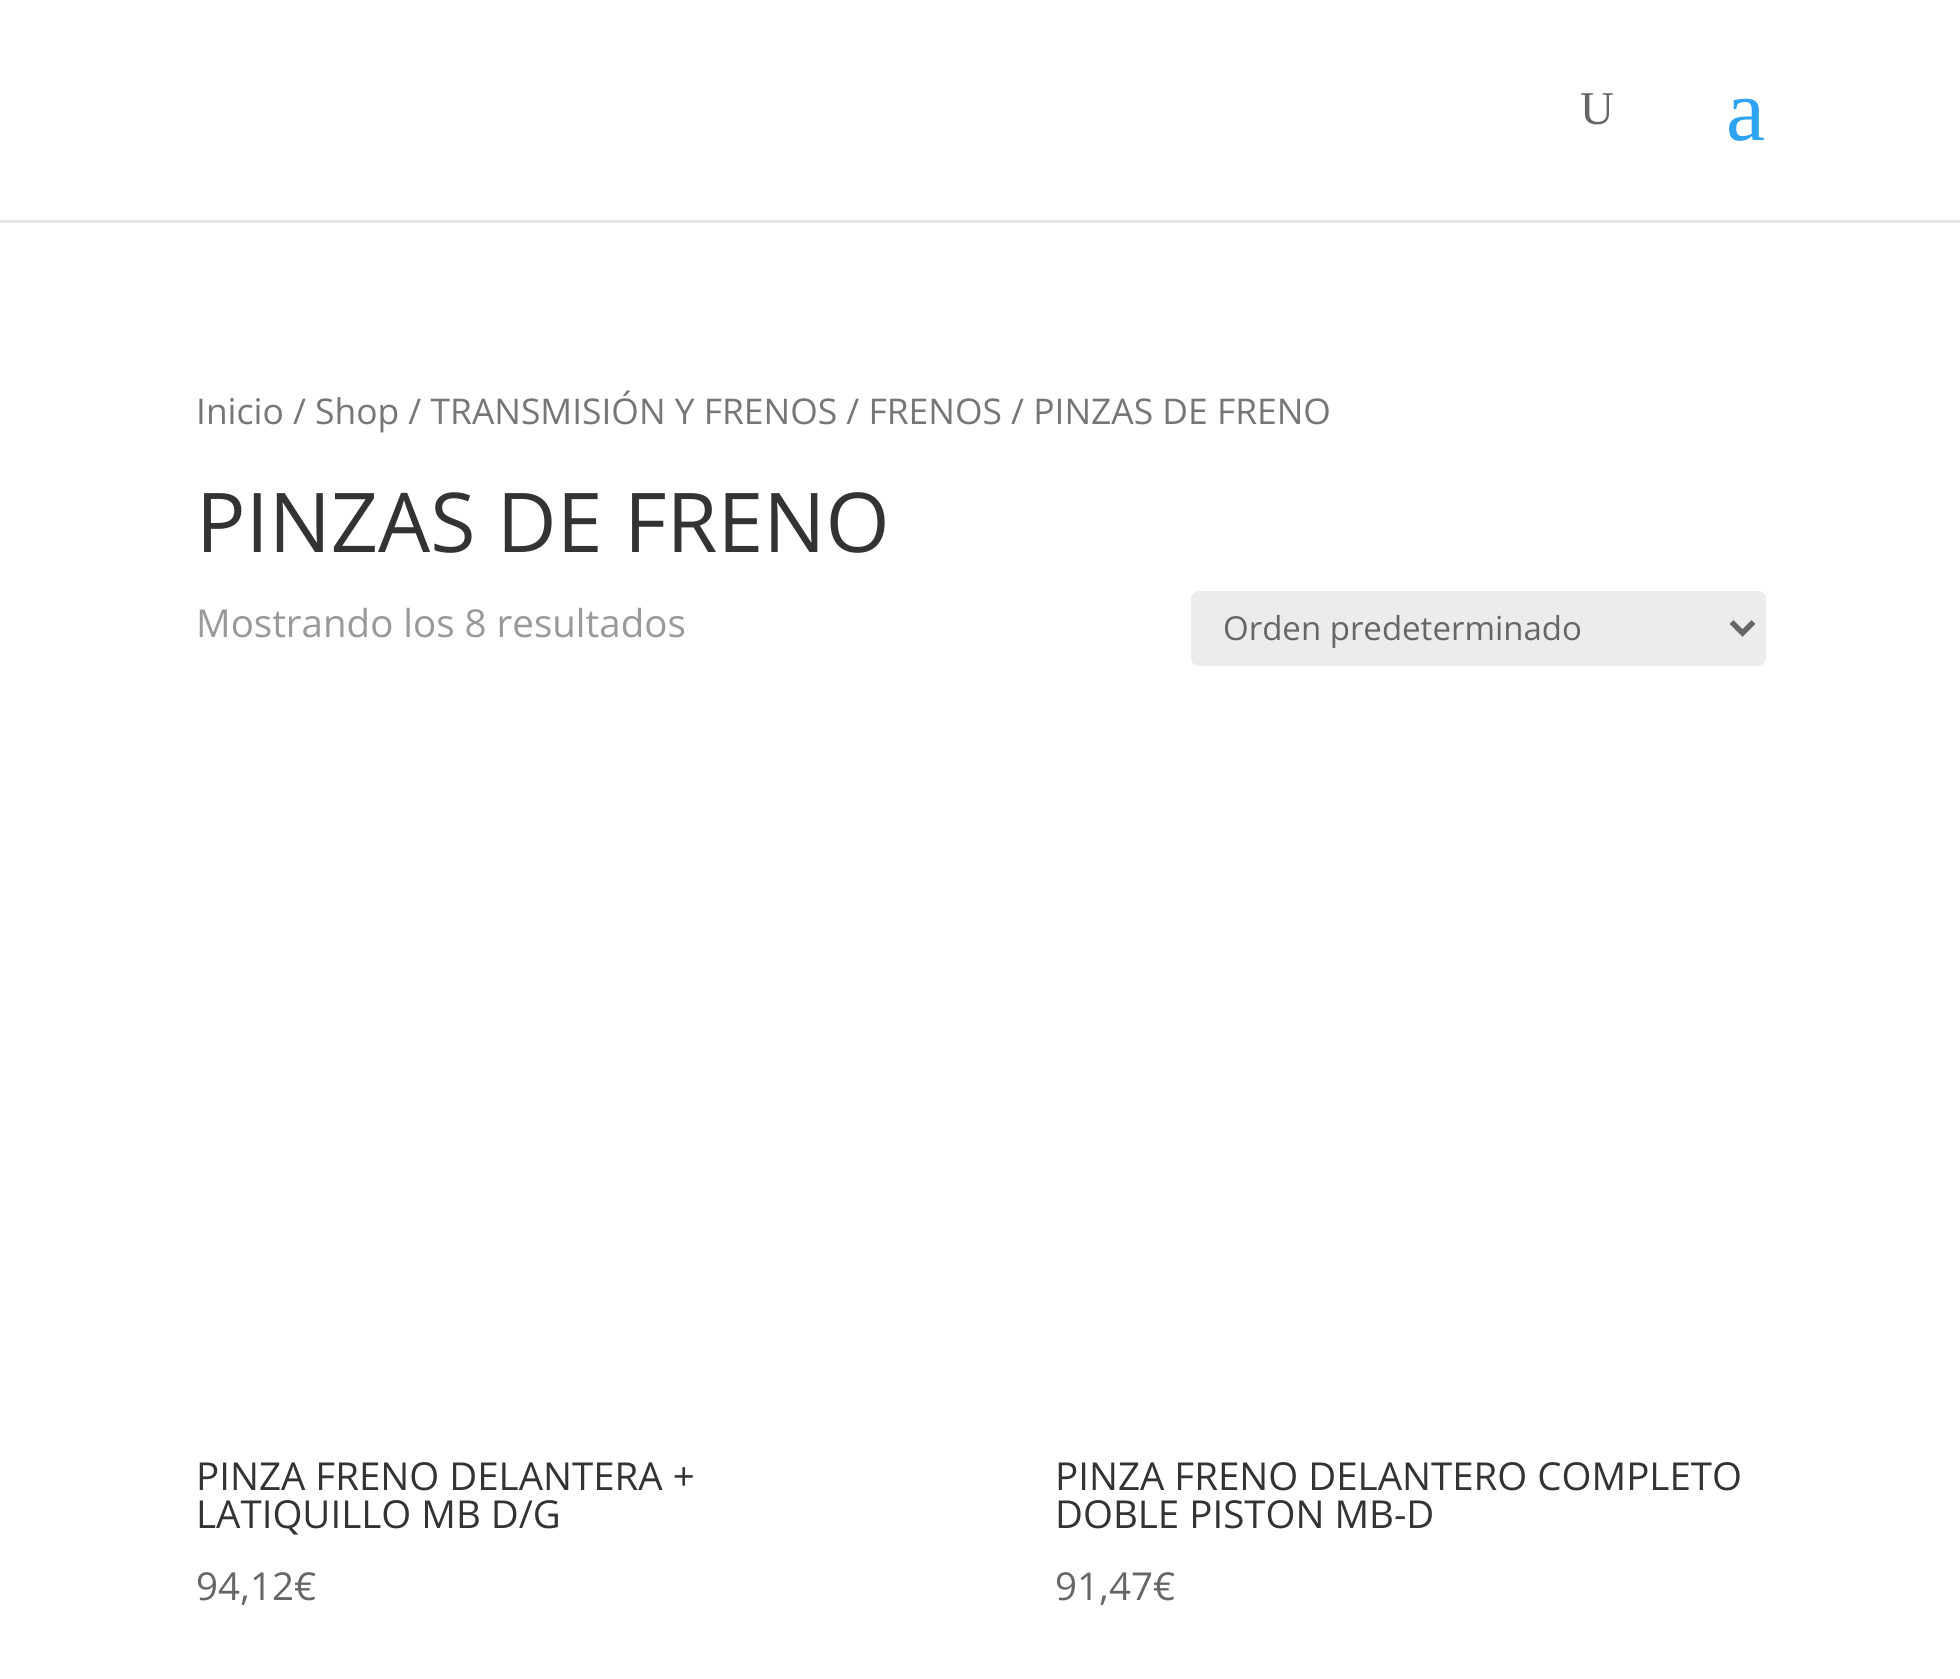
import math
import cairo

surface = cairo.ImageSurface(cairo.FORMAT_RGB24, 1960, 1679)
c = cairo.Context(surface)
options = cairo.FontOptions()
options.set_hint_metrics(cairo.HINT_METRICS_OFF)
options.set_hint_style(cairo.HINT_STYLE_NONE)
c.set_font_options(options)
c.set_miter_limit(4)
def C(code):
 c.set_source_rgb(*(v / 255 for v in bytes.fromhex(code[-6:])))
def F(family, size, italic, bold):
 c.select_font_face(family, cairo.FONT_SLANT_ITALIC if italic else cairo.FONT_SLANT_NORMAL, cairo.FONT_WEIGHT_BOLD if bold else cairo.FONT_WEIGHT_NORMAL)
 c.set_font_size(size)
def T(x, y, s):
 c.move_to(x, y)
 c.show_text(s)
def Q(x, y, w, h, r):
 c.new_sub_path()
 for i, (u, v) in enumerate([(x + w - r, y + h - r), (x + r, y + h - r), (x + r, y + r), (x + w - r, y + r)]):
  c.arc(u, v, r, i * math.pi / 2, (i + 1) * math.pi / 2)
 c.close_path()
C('ffffff')
c.paint()
C('e6e6e6')
c.new_path()
c.move_to(0,220)
c.line_to(0,223)
c.line_to(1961,223)
c.line_to(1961,3)
c.line_to(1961,220)
c.close_path()
c.fill()
F('Liberation Serif',47,0,0)
C('666666')
T(1580,124,'U')
F('Liberation Serif',88,0,0)
C('2ea3f2')
T(1726,140,'a')
F('Open Sans',35.4,0,0)
C('767676')
T(196,424,'Inicio / Shop / TRANSMISIÓN Y FRENOS / FRENOS / PINZAS DE FRENO')
F('Open Sans',82.5,0,0)
C('333333')
T(196,552,'PINZAS DE FRENO')
F('Open Sans',38.5,0,0)
C('999999')
T(196,637,'Mostrando los 8 resultados')
C('ececec')
Q(1191,591,575,75,8)
c.fill()
c.new_path()
c.move_to(1731.5,622)
c.line_to(1742.5,633)
c.line_to(1753.5,622)
C('666666')
c.set_line_width(5.5)
c.stroke()
F('Open Sans',33,0,0)
T(1223,640,'Orden predeterminado')
F('Open Sans',38.5,0,0)
C('333333')
T(196,1490,'PINZA FRENO DELANTERA +')
T(196,1528,'LATIQUILLO MB D/G')
C('666666')
T(196,1600,'94,12€')
C('333333')
T(1055,1490,'PINZA FRENO DELANTERO COMPLETO')
T(1055,1528,'DOBLE PISTON MB-D')
C('666666')
T(1055,1600,'91,47€')
surface.write_to_png('o.png')
